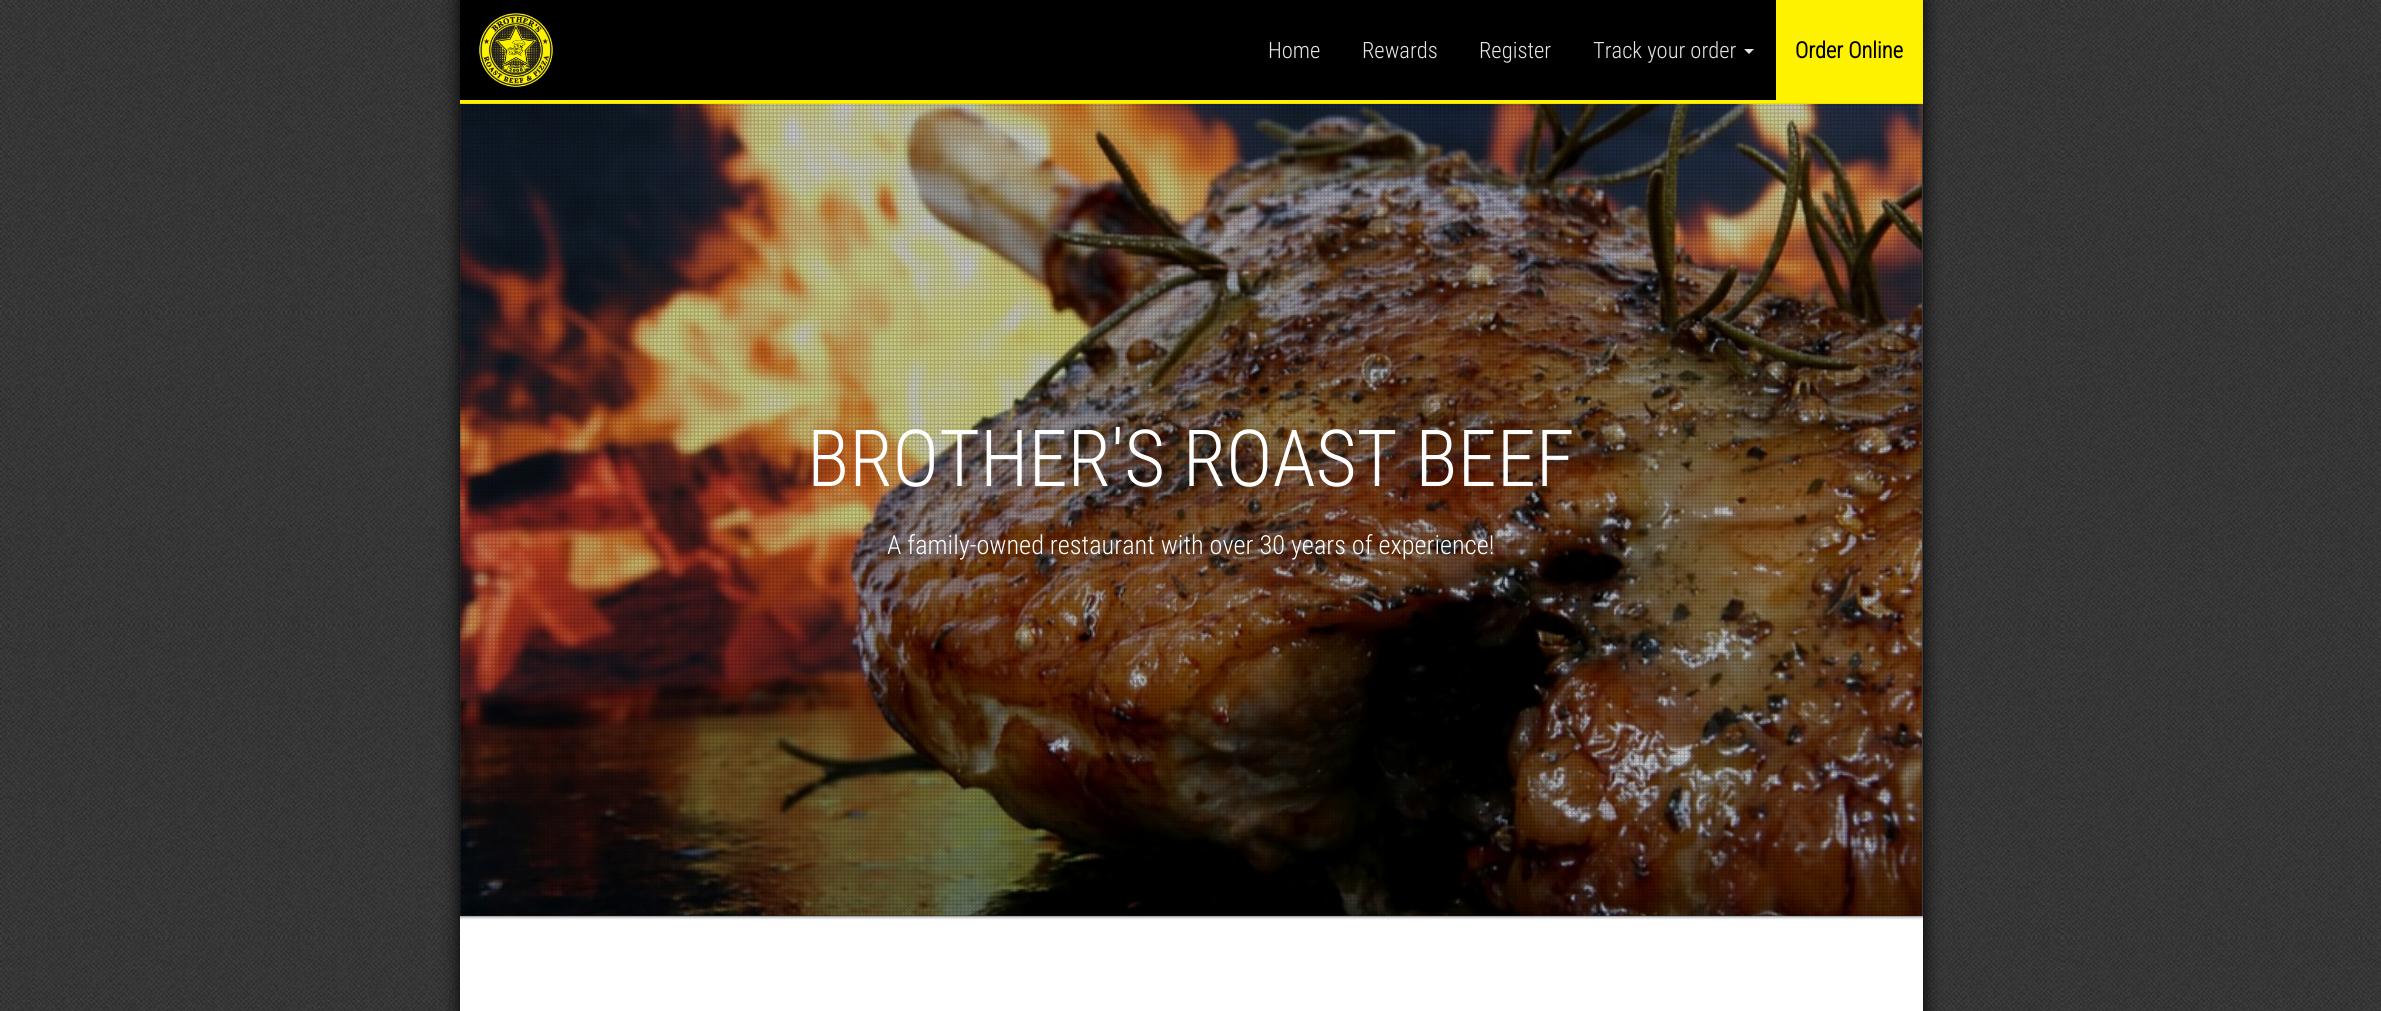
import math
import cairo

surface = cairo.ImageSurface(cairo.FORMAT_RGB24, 2381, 1011)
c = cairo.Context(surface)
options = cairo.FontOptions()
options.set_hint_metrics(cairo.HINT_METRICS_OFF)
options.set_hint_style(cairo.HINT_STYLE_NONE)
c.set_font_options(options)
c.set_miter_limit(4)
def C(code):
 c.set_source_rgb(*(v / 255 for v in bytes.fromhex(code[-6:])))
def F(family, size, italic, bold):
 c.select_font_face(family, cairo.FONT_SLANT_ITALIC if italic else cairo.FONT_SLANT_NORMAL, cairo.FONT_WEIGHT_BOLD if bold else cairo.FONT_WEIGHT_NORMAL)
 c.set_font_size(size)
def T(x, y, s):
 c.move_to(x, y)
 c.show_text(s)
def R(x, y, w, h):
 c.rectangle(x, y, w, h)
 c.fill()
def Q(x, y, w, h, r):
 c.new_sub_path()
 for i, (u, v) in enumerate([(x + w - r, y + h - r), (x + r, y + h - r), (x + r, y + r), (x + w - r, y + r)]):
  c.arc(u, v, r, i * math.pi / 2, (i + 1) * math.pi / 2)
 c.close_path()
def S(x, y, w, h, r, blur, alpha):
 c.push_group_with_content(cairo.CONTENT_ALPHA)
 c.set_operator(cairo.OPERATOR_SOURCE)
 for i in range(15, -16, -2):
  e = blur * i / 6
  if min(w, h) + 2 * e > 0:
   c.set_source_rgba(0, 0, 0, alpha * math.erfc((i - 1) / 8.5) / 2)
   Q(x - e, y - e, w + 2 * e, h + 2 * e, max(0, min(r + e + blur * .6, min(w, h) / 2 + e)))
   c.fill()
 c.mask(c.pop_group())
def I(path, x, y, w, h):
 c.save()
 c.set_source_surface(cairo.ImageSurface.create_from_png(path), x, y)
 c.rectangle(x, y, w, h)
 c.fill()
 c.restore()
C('ffffff')
c.paint()
I('1.png',0,0,2381,1011)
C('000000')
S(460,0,1463,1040,0,9.5,1)
C('ffffff')
R(460,917,1463,94)
C('000000')
R(460,0,1316,100)
C('fef200')
R(460,100,1463,4)
I('2.png',479,13,74,74)
F('Roboto Condensed Light',22.5,0,0)
C('e6e6e6')
T(1268,58,'Home')
T(1362,58,'Rewards')
T(1479,58,'Register')
T(1593,58,'Track your order')
c.new_path()
c.move_to(1744,49)
c.line_to(1754,49)
c.line_to(1749,54)
c.close_path()
c.fill()
C('fef200')
R(1776,0,147,100)
F('Roboto Condensed',22.5,0,1)
C('000000')
T(1795,58,'Order Online')
C('555555')
R(460,104,1463,812)
C('eaeaea')
R(460,916,1463,1)
C('000000')
S(460,105,1463,813,0,1,.25)
I('3.png',460,104,1462,812)
I('4.png',460,103,1463,814)
F('Roboto Condensed Light',78.75,0,0)
C('ffffff')
T(807,486,'BROTHER\'S ROAST BEEF')
F('Roboto Condensed Light',26.25,0,0)
T(887,554,'A family-owned restaurant with over 30 years of experience!')
surface.write_to_png('o.png')
